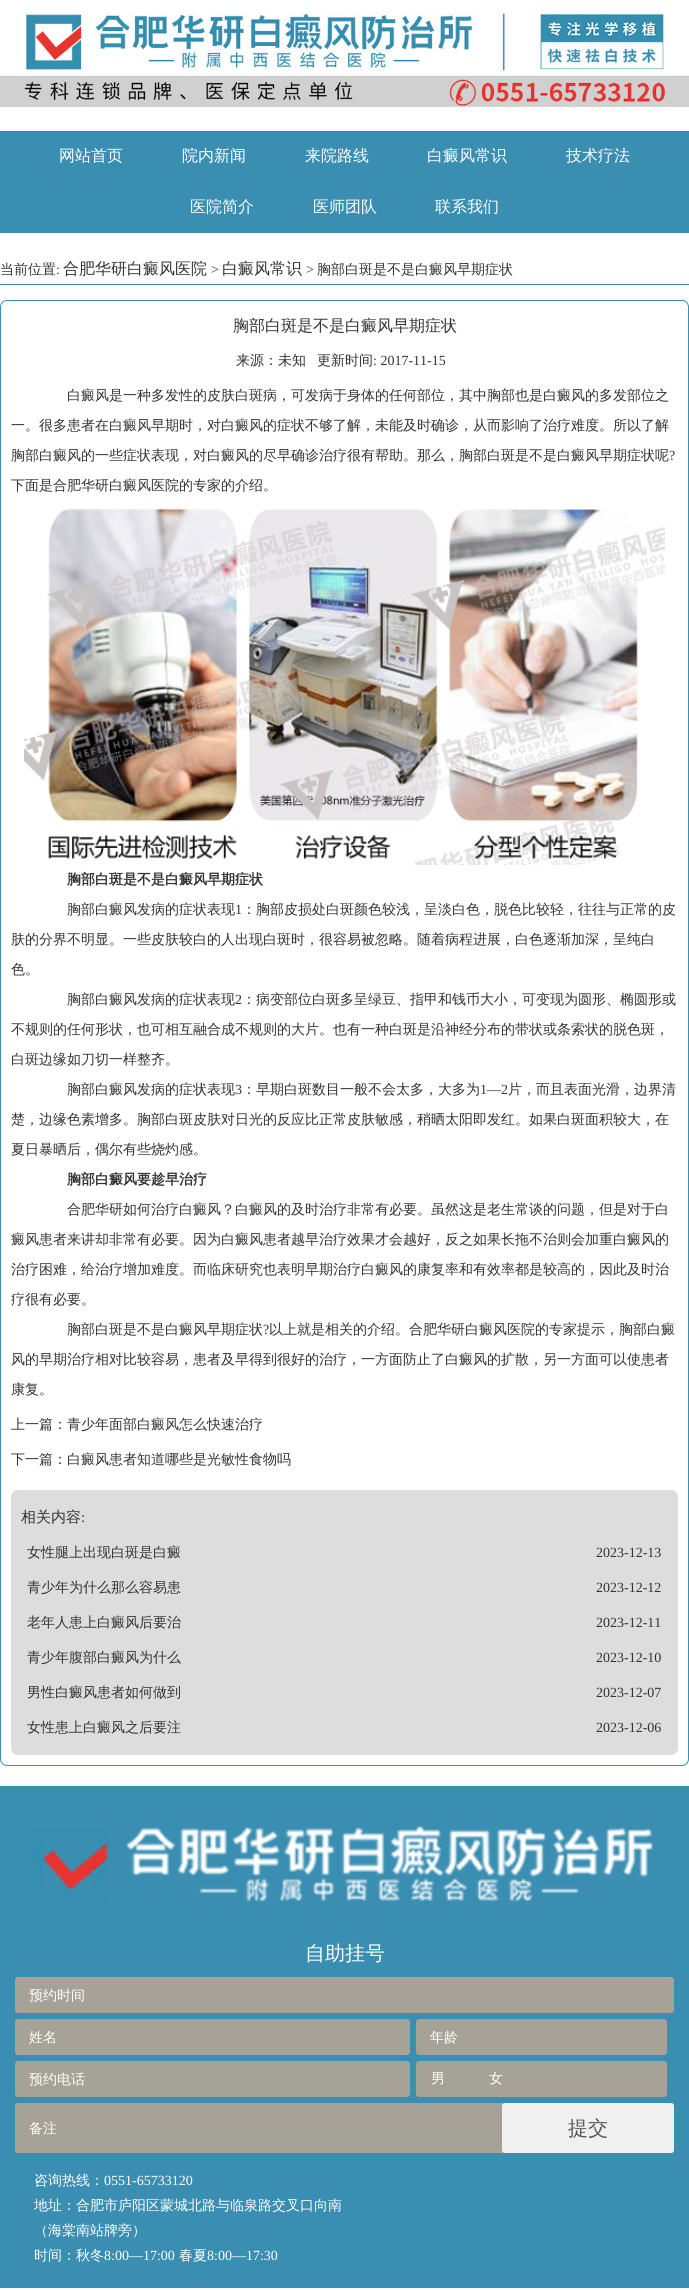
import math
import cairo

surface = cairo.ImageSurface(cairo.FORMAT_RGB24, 689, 2290)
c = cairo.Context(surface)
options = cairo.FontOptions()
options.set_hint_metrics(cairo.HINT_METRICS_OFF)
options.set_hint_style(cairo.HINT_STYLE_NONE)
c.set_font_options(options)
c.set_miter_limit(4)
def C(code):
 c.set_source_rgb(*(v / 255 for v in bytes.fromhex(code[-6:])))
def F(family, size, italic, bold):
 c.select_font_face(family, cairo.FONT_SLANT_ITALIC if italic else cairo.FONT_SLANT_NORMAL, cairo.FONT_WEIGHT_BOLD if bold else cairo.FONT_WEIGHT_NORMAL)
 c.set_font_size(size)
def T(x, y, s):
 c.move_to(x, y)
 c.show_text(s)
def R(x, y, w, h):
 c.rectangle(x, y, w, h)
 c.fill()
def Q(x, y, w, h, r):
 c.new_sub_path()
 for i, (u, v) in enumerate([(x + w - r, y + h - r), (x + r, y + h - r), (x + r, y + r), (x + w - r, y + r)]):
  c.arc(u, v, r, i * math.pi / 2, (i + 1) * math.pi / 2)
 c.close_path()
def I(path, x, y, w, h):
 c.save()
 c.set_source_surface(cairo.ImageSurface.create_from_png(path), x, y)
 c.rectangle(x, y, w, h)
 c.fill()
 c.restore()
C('ffffff')
c.paint()
I('1.png',0,12,689,95)
C('3a8eb2')
R(0,131,689,102)
F('WenQuanYi Zen Hei Medium',16,0,0)
C('ffffff')
T(59,161,'网站首页')
T(182,161,'院内新闻')
T(305,161,'来院路线')
T(427,161,'白癜风常识')
T(566,161,'技术疗法')
T(190,212,'医院简介')
T(313,212,'医师团队')
T(435,212,'联系我们')
C('3a8eb2')
R(0,284,689,1)
F('WenQuanYi Zen Hei Medium',14,0,0)
C('333333')
T(0,274,'当前位置')
F('Liberation Serif',14,0,0)
T(56,274,':')
F('WenQuanYi Zen Hei Medium',16,0,0)
T(63,274,'合肥华研白癜风医院')
F('Liberation Serif',14,0,0)
T(211,274,'>')
F('WenQuanYi Zen Hei Medium',16,0,0)
T(222,274,'白癜风常识')
F('Liberation Serif',14,0,0)
T(306,274,'>')
F('WenQuanYi Zen Hei Medium',14,0,0)
T(317,274,'胸部白斑是不是白癜风早期症状')
Q(.5,300.5,688,1465,6.5)
C('3a8eb2')
c.set_line_width(1)
c.stroke()
F('WenQuanYi Zen Hei Medium',16,0,0)
C('333333')
T(233,331,'胸部白斑是不是白癜风早期症状')
F('WenQuanYi Zen Hei Medium',14,0,0)
T(236,365,'来源：未知')
T(317,365,'更新时间')
F('Liberation Serif',14,0,0)
T(373,365,': 2017-11-15')
F('WenQuanYi Zen Hei Medium',14,0,0)
T(67,400,'白癜风是一种多发性的皮肤白斑病，可发病于身体的任何部位，其中胸部也是白癜风的多发部位之')
T(11,430,'一。很多患者在白癜风早期时，对白癜风的症状不够了解，未能及时确诊，从而影响了治疗难度。所以了解')
T(11,460,'胸部白癜风的一些症状表现，对白癜风的尽早确诊治疗很有帮助。那么，胸部白斑是不是白癜风早期症状呢')
F('Liberation Serif',14,0,0)
T(669,460,'?')
F('WenQuanYi Zen Hei Medium',14,0,0)
T(11,490,'下面是合肥华研白癜风医院的专家的介绍。')
I('2.png',24,508,641,357)
F('WenQuanYi Zen Hei',14,0,1)
T(67,884,'胸部白斑是不是白癜风早期症状')
F('WenQuanYi Zen Hei Medium',14,0,0)
T(67,914,'胸部白癜风发病的症状表现')
F('Liberation Serif',14,0,0)
T(235,914,'1')
F('WenQuanYi Zen Hei Medium',14,0,0)
T(242,914,'：胸部皮损处白斑颜色较浅，呈淡白色，脱色比较轻，往往与正常的皮')
T(11,944,'肤的分界不明显。一些皮肤较白的人出现白斑时，很容易被忽略。随着病程进展，白色逐渐加深，呈纯白')
T(11,974,'色。')
T(67,1004,'胸部白癜风发病的症状表现')
F('Liberation Serif',14,0,0)
T(235,1004,'2')
F('WenQuanYi Zen Hei Medium',14,0,0)
T(242,1004,'：病变部位白斑多呈绿豆、指甲和钱币大小，可变现为圆形、椭圆形或')
T(11,1034,'不规则的任何形状，也可相互融合成不规则的大片。也有一种白斑是沿神经分布的带状或条索状的脱色斑，')
T(11,1064,'白斑边缘如刀切一样整齐。')
T(67,1094,'胸部白癜风发病的症状表现')
F('Liberation Serif',14,0,0)
T(235,1094,'3')
F('WenQuanYi Zen Hei Medium',14,0,0)
T(242,1094,'：早期白斑数目一般不会太多，大多为')
F('Liberation Serif',14,0,0)
T(480,1094,'1—2')
F('WenQuanYi Zen Hei Medium',14,0,0)
T(508,1094,'片，而且表面光滑，边界清')
T(11,1124,'楚，边缘色素增多。胸部白斑皮肤对日光的反应比正常皮肤敏感，稍晒太阳即发红。如果白斑面积较大，在')
T(11,1154,'夏日暴晒后，偶尔有些烧灼感。')
F('WenQuanYi Zen Hei',14,0,1)
T(67,1184,'胸部白癜风要趁早治疗')
F('WenQuanYi Zen Hei Medium',14,0,0)
T(67,1214,'合肥华研如何治疗白癜风？白癜风的及时治疗非常有必要。虽然这是老生常谈的问题，但是对于白')
T(11,1244,'癜风患者来讲却非常有必要。因为白癜风患者越早治疗效果才会越好，反之如果长拖不治则会加重白癜风的')
T(11,1274,'治疗困难，给治疗增加难度。而临床研究也表明早期治疗白癜风的康复率和有效率都是较高的，因此及时治')
T(11,1304,'疗很有必要。')
T(67,1334,'胸部白斑是不是白癜风早期症状')
F('Liberation Serif',14,0,0)
T(263,1334,'?')
F('WenQuanYi Zen Hei Medium',14,0,0)
T(269,1334,'以上就是相关的介绍。合肥华研白癜风医院的专家提示，胸部白癜')
T(11,1364,'风的早期治疗相对比较容易，患者及早得到很好的治疗，一方面防止了白癜风的扩散，另一方面可以使患者')
T(11,1394,'康复。')
T(11,1429,'上一篇：青少年面部白癜风怎么快速治疗')
T(11,1464,'下一篇：白癜风患者知道哪些是光敏性食物吗')
C('dddddd')
Q(11,1490,667,265,7)
c.fill()
F('WenQuanYi Zen Hei Medium',15,0,0)
C('333333')
T(21,1522,'相关内容')
F('Liberation Serif',15,0,0)
T(81,1522,':')
F('WenQuanYi Zen Hei Medium',14,0,0)
T(27,1557,'女性腿上出现白斑是白癜')
F('Liberation Serif',14,0,0)
T(596,1557,'2023-12-13')
F('WenQuanYi Zen Hei Medium',14,0,0)
T(27,1592,'青少年为什么那么容易患')
F('Liberation Serif',14,0,0)
T(596,1592,'2023-12-12')
F('WenQuanYi Zen Hei Medium',14,0,0)
T(27,1627,'老年人患上白癜风后要治')
F('Liberation Serif',14,0,0)
T(596,1627,'2023-12-11')
F('WenQuanYi Zen Hei Medium',14,0,0)
T(27,1662,'青少年腹部白癜风为什么')
F('Liberation Serif',14,0,0)
T(596,1662,'2023-12-10')
F('WenQuanYi Zen Hei Medium',14,0,0)
T(27,1697,'男性白癜风患者如何做到')
F('Liberation Serif',14,0,0)
T(596,1697,'2023-12-07')
F('WenQuanYi Zen Hei Medium',14,0,0)
T(27,1732,'女性患上白癜风之后要注')
F('Liberation Serif',14,0,0)
T(596,1732,'2023-12-06')
C('3a8eb2')
R(0,1786,689,502)
I('3.png',31,1826,622,76)
F('WenQuanYi Zen Hei Medium',20,0,0)
C('ffffff')
T(305,1960,'自助挂号')
C('a6a298')
Q(15,1977,659,36,3)
c.fill()
F('WenQuanYi Zen Hei Medium',14,0,0)
C('ffffff')
T(29,2000,'预约时间')
C('a6a298')
Q(15,2019,395,36,3)
c.fill()
C('ffffff')
T(29,2042,'姓名')
C('a6a298')
Q(416,2019,251,36,3)
c.fill()
C('ffffff')
T(430,2042,'年龄')
C('a6a298')
Q(15,2061,395,36,3)
c.fill()
C('ffffff')
T(29,2084,'预约电话')
C('a6a298')
Q(416,2061,251,36,3)
c.fill()
C('ffffff')
T(431,2083,'男')
T(489,2083,'女')
C('a6a298')
Q(15,2103,659,50,3)
c.fill()
Q(15,2103,395,50,3)
c.fill()
C('ffffff')
T(29,2133,'备注')
C('f0f0f0')
Q(502,2103,172,50,3)
c.fill()
F('WenQuanYi Zen Hei Medium',20,0,0)
C('555555')
T(568,2135,'提交')
F('WenQuanYi Zen Hei Medium',14,0,0)
C('ffffff')
T(34,2185,'咨询热线：')
F('Liberation Serif',14,0,0)
T(104,2185,'0551-65733120')
F('WenQuanYi Zen Hei Medium',14,0,0)
T(34,2210,'地址：合肥市庐阳区蒙城北路与临泉路交叉口向南')
T(34,2235,'（海棠南站牌旁）')
T(34,2260,'时间：秋冬')
F('Liberation Serif',14,0,0)
T(104,2260,'8:00—17:00')
F('WenQuanYi Zen Hei Medium',14,0,0)
T(179,2260,'春夏')
F('Liberation Serif',14,0,0)
T(207,2260,'8:00—17:30')
surface.write_to_png('o.png')
